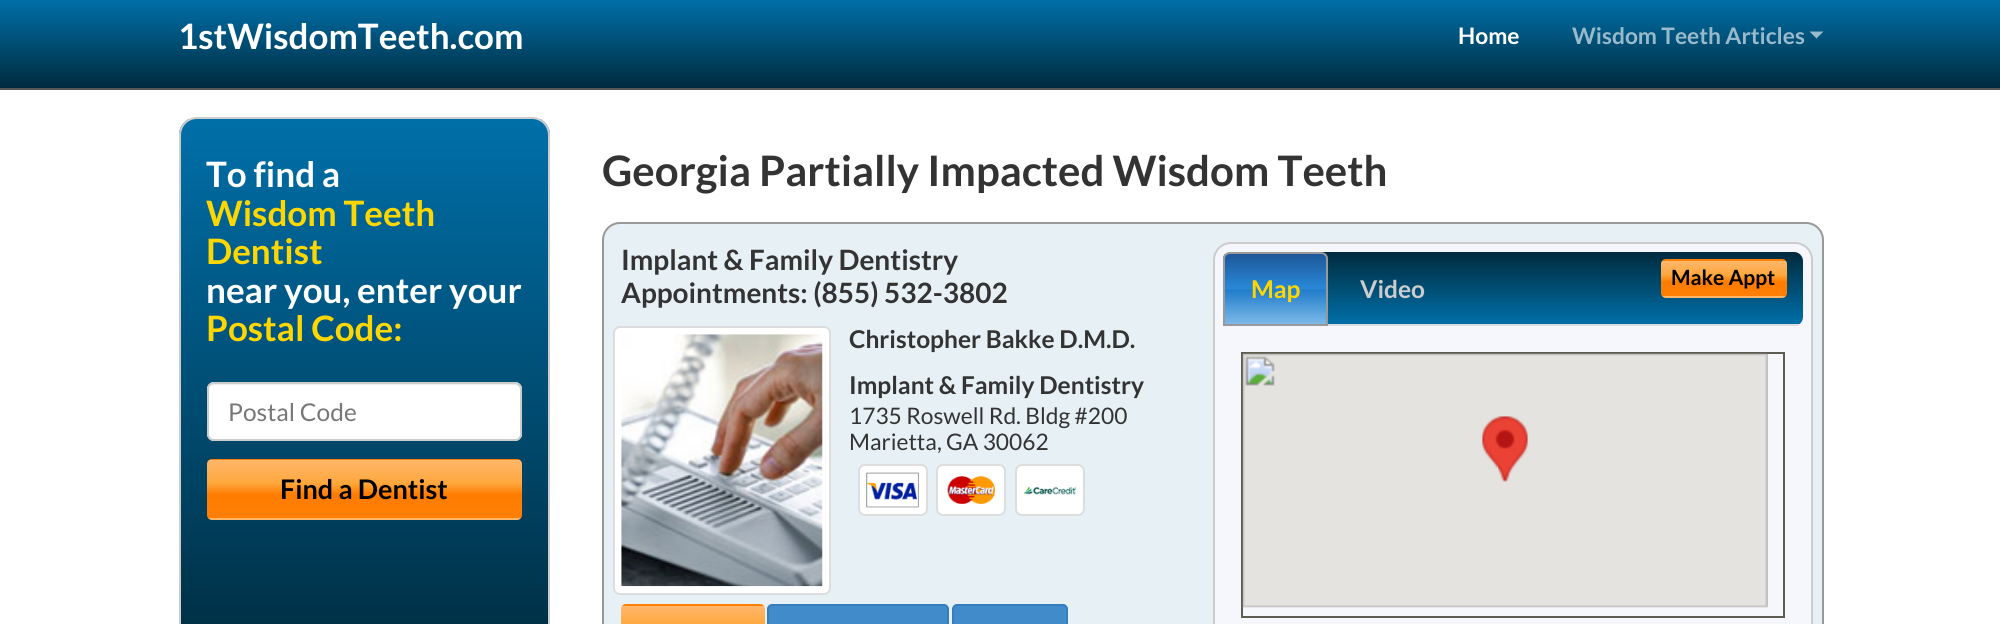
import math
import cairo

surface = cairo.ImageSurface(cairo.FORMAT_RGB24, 2000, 624)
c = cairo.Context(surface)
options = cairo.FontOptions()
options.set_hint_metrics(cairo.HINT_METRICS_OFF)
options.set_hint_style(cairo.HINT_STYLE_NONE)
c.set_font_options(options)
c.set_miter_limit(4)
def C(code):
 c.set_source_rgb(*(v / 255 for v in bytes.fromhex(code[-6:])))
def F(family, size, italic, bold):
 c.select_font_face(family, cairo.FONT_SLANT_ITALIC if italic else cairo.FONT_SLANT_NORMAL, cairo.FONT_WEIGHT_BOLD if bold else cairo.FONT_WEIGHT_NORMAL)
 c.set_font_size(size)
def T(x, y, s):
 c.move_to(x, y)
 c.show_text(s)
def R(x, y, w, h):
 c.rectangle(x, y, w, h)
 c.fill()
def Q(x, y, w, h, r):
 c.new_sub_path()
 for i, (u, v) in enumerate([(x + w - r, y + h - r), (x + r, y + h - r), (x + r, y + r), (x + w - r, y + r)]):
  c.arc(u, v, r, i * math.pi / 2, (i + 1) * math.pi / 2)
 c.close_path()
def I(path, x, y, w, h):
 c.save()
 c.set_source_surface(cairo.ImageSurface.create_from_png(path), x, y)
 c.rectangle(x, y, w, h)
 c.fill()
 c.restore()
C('ffffff')
c.paint()
gradient = cairo.LinearGradient(1000,0,1000,88)
gradient.add_color_stop_rgba(0,0,0.435,0.659,1)
gradient.add_color_stop_rgba(1,0,0.169,0.243,1)
c.set_source(gradient)
R(0,0,2000,88)
C('585858')
R(0,88,2000,2)
F('Lato',35,0,1)
C('ffffff')
T(178,49,'1stWisdomTeeth.com')
F('Lato',22.75,0,1)
T(1458,44,'Home')
C('99baca')
T(1572,44,'Wisdom Teeth Articles')
c.set_source_rgba(1,1,1,0.6)
c.new_path()
c.move_to(1809.5,31.5)
c.line_to(1823.5,31.5)
c.line_to(1816.5,38.5)
c.close_path()
c.fill()
c.save()
Q(179,117,371,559,18)
c.clip()
gradient = cairo.LinearGradient(364,119,364,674)
gradient.add_color_stop_rgba(0,0,0.435,0.659,1)
gradient.add_color_stop_rgba(1,0,0.169,0.243,1)
c.set_source(gradient)
R(179,119,371,505)
c.restore()
Q(180,118,369,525,17)
C('cccccc')
c.stroke()
F('Lato',35,0,1)
C('ffffff')
T(206,187,'To find a')
C('ffd700')
T(206,226,'Wisdom Teeth')
T(206,264,'Dentist')
C('ffffff')
T(206,303,'near you, enter your')
C('ffd700')
T(206,341,'Postal Code:')
C('ffffff')
Q(207,382,315,59,7)
c.fill()
C('ececec')
c.new_path()
c.move_to(214,385)
c.line_to(514,385)
c.curve_to(517,385,520,387,520,390)
c.line_to(520,388)
c.curve_to(520,385,518,383,515,383)
c.line_to(213,383)
c.curve_to(210,383,208,385,208,388)
c.line_to(208,390)
c.curve_to(208,387,211,385,214,385)
c.close_path()
c.fill()
Q(208,383,313,57,6)
C('cccccc')
c.stroke()
F('Lato',24.5,0,0)
C('777777')
T(228,421,'Postal Code')
c.save()
Q(207,459,315,61,5)
c.clip()
gradient = cairo.LinearGradient(364,403,364,460)
gradient.add_color_stop_rgba(0,1,0.718,0.42,1)
gradient.add_color_stop_rgba(.4,1,0.655,0.239,1)
gradient.add_color_stop_rgba(.6,1,0.486,0,1)
gradient.add_color_stop_rgba(1,1,0.498,0.016,1)
c.set_source(gradient)
R(207,459,315,1)
gradient = cairo.LinearGradient(364,460,364,518)
gradient.add_color_stop_rgba(0,1,0.718,0.42,1)
gradient.add_color_stop_rgba(.4,1,0.655,0.239,1)
gradient.add_color_stop_rgba(.6,1,0.486,0,1)
gradient.add_color_stop_rgba(1,1,0.498,0.016,1)
c.set_source(gradient)
R(207,460,315,58)
gradient = cairo.LinearGradient(364,518,364,576)
gradient.add_color_stop_rgba(0,1,0.718,0.42,1)
gradient.add_color_stop_rgba(.4,1,0.655,0.239,1)
gradient.add_color_stop_rgba(.6,1,0.486,0,1)
gradient.add_color_stop_rgba(1,1,0.498,0.016,1)
c.set_source(gradient)
R(207,518,315,2)
c.restore()
F('Lato',27,0,1)
C('000000')
T(280,499,'Find a Dentist')
F('Lato',42,0,1)
C('333333')
T(602,186,'Georgia Partially Impacted Wisdom Teeth')
C('e6f0f5')
Q(603,223,1220,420,17)
c.fill_preserve()
C('999999')
c.stroke()
F('Lato',28,0,1)
C('333333')
T(621,270,'Implant & Family Dentistry')
T(621,303,'Appointments: (855) 532-3802')
C('ffffff')
Q(614,327,216,267,6)
c.fill_preserve()
C('dddddd')
c.stroke()
I('1.png',621,334,202,253)
F('Lato',24.5,0,1)
C('333333')
T(849,348,'Christopher Bakke D.M.D.')
T(849,394,'Implant & Family Dentistry')
F('Lato',22.75,0,0)
T(849,424,'1735 Roswell Rd. Bldg #200')
T(849,450,'Marietta, GA 30062')
C('ffffff')
Q(859,465,68,50,6)
c.fill_preserve()
C('dddddd')
c.stroke()
I('2.png',866,472,53,36)
C('ffffff')
Q(937,465,68,50,6)
c.fill_preserve()
C('dddddd')
c.stroke()
I('3.png',947,476,48,28)
C('ffffff')
Q(1016,465,68,50,6)
c.fill_preserve()
C('dddddd')
c.stroke()
I('4.png',1023,486,54,9)
c.save()
Q(621,604,144,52,5)
c.clip()
gradient = cairo.LinearGradient(693,557,693,606)
gradient.add_color_stop_rgba(0,1,0.718,0.42,1)
gradient.add_color_stop_rgba(.4,1,0.655,0.239,1)
gradient.add_color_stop_rgba(.6,1,0.486,0,1)
gradient.add_color_stop_rgba(1,1,0.498,0.016,1)
c.set_source(gradient)
R(621,604,144,2)
gradient = cairo.LinearGradient(693,606,693,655)
gradient.add_color_stop_rgba(0,1,0.718,0.42,1)
gradient.add_color_stop_rgba(.4,1,0.655,0.239,1)
gradient.add_color_stop_rgba(.6,1,0.486,0,1)
gradient.add_color_stop_rgba(1,1,0.498,0.016,1)
c.set_source(gradient)
R(621,606,144,18)
c.restore()
C('428bca')
Q(768,605,180,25,4)
c.fill_preserve()
C('357ebd')
c.stroke()
C('428bca')
Q(953,605,114,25,4)
c.fill_preserve()
C('357ebd')
c.stroke()
C('f6f6fd')
Q(1214,243,598,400,17)
c.fill_preserve()
C('cccccc')
c.stroke()
c.save()
Q(1223,252,580,74,9)
c.clip()
gradient = cairo.LinearGradient(1513,252,1513,324)
gradient.add_color_stop_rgba(0,0,0.169,0.243,1)
gradient.add_color_stop_rgba(1,0,0.435,0.659,1)
c.set_source(gradient)
c.new_path()
c.move_to(1232,252)
c.line_to(1794,252)
c.curve_to(1799,252,1803,256,1803,261)
c.line_to(1803,324)
c.line_to(1223,324)
c.line_to(1223,261)
c.curve_to(1223,256,1227,252,1232,252)
c.close_path()
c.fill()
c.restore()
C('dddddd')
R(1328,324,471,2)
c.save()
c.new_path()
c.move_to(1230,252)
c.line_to(1321,252)
c.curve_to(1325,252,1328,255,1328,259)
c.line_to(1328,326)
c.line_to(1223,326)
c.line_to(1223,259)
c.curve_to(1223,255,1226,252,1230,252)
c.close_path()
c.clip()
gradient = cairo.LinearGradient(1276,254,1276,324)
gradient.add_color_stop_rgba(0,0.118,0.341,0.6,1)
gradient.add_color_stop_rgba(.5,0.161,0.537,0.847,1)
gradient.add_color_stop_rgba(.51,0.125,0.486,0.792,1)
gradient.add_color_stop_rgba(1,0.49,0.725,0.91,1)
c.set_source(gradient)
R(1223,254,105,70)
c.restore()
c.new_path()
c.move_to(1230,253)
c.line_to(1321,253)
c.curve_to(1324.5,253,1327,255.5,1327,259)
c.line_to(1327,325)
c.line_to(1224,325)
c.line_to(1224,259)
c.curve_to(1224,255.5,1226.5,253,1230,253)
c.close_path()
C('999999')
c.stroke()
F('Lato',24.5,0,1)
C('ffd700')
T(1251,298,'Map')
C('cccccc')
T(1360,298,'Video')
c.rectangle(1242,353,542,264)
C('5f5c52')
c.stroke()
I('5.png',1242,353,526,255)
c.save()
Q(1661,259,126,39,5)
c.clip()
gradient = cairo.LinearGradient(1724,226,1724,261)
gradient.add_color_stop_rgba(0,1,0.718,0.42,1)
gradient.add_color_stop_rgba(.4,1,0.655,0.239,1)
gradient.add_color_stop_rgba(.6,1,0.486,0,1)
gradient.add_color_stop_rgba(1,1,0.498,0.016,1)
c.set_source(gradient)
R(1661,259,126,2)
gradient = cairo.LinearGradient(1724,261,1724,296)
gradient.add_color_stop_rgba(0,1,0.718,0.42,1)
gradient.add_color_stop_rgba(.4,1,0.655,0.239,1)
gradient.add_color_stop_rgba(.6,1,0.486,0,1)
gradient.add_color_stop_rgba(1,1,0.498,0.016,1)
c.set_source(gradient)
R(1661,261,126,35)
gradient = cairo.LinearGradient(1724,296,1724,331)
gradient.add_color_stop_rgba(0,1,0.718,0.42,1)
gradient.add_color_stop_rgba(.4,1,0.655,0.239,1)
gradient.add_color_stop_rgba(.6,1,0.486,0,1)
gradient.add_color_stop_rgba(1,1,0.498,0.016,1)
c.set_source(gradient)
R(1661,296,126,2)
c.restore()
F('Lato',21,0,1)
C('000000')
T(1671,285,'Make Appt')
surface.write_to_png('o.png')
